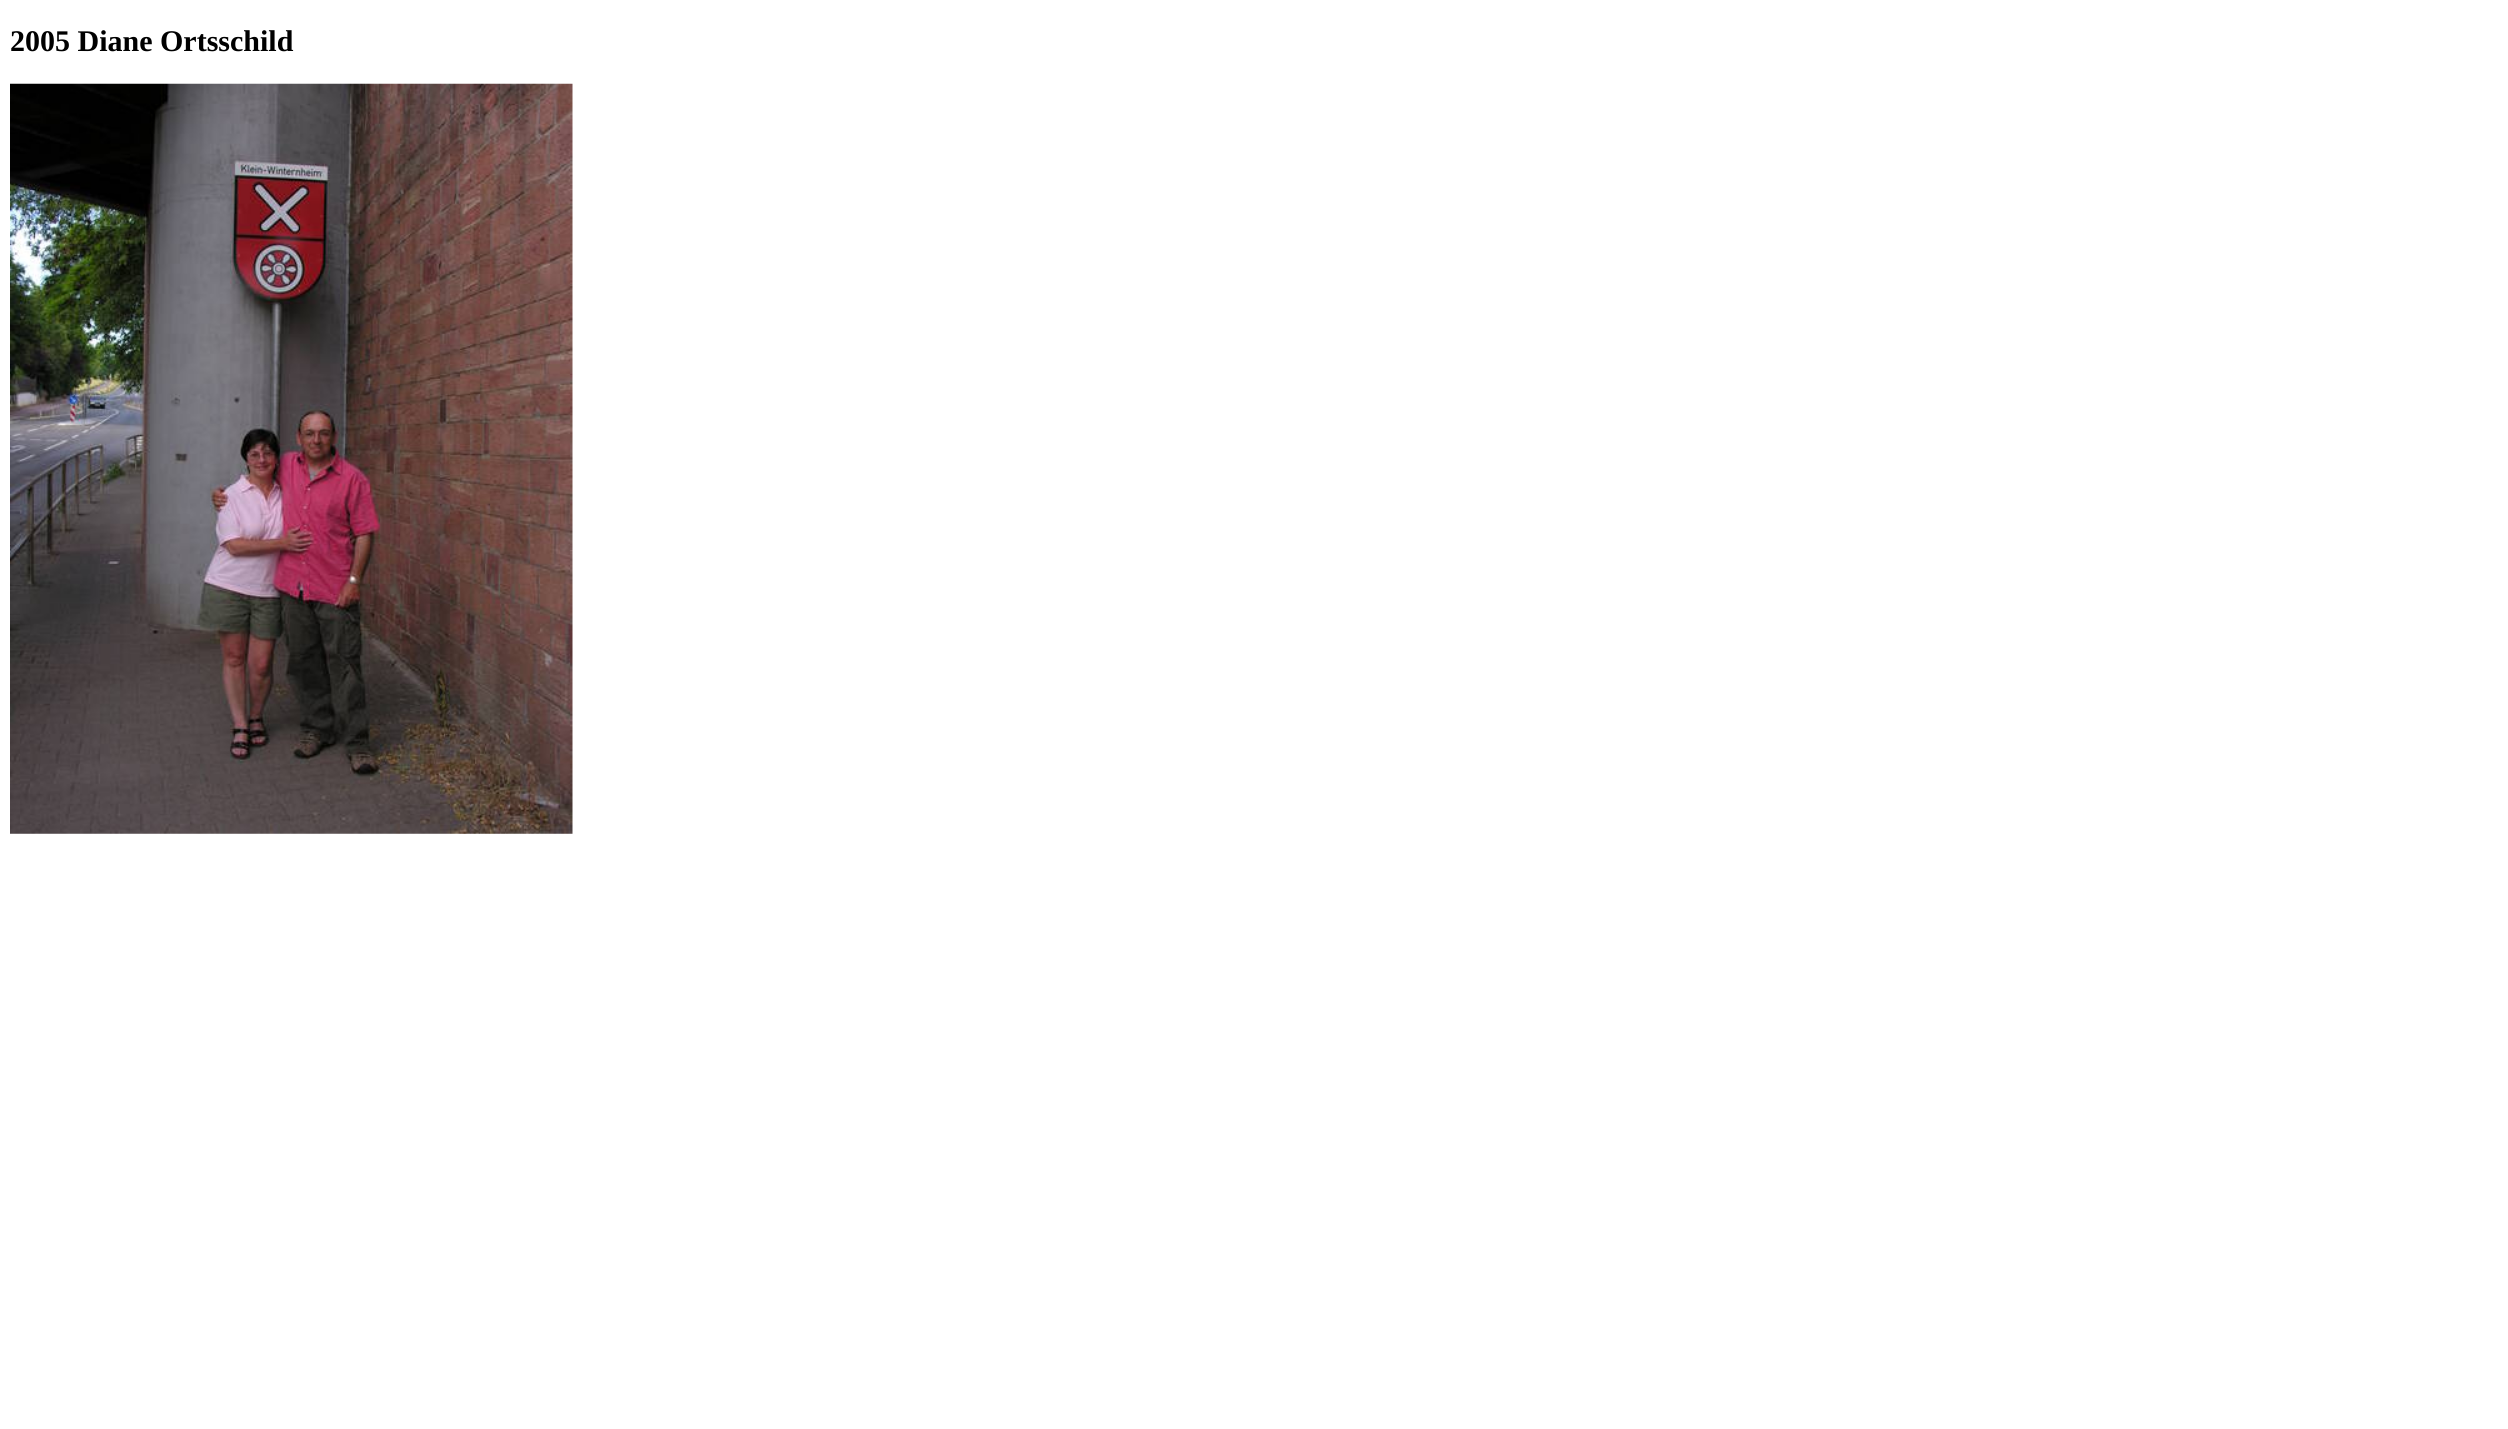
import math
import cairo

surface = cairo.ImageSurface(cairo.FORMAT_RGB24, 2508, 1429)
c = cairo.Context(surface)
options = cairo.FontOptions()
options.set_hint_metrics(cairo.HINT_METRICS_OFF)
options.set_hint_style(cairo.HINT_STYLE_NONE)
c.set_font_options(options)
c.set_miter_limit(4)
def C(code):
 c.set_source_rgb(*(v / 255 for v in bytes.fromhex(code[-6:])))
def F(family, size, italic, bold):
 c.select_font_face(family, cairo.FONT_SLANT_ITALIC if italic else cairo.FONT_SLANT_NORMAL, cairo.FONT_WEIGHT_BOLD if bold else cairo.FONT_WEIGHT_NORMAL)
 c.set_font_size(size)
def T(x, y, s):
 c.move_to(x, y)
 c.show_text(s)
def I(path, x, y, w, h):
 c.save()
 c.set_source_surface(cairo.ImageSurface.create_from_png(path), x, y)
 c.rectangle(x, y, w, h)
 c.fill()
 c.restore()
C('ffffff')
c.paint()
F('Liberation Serif',30,0,1)
C('000000')
T(10,51,'2005 Diane Ortsschild')
I('1.png',10,83,563,751)
surface.write_to_png('o.png')
